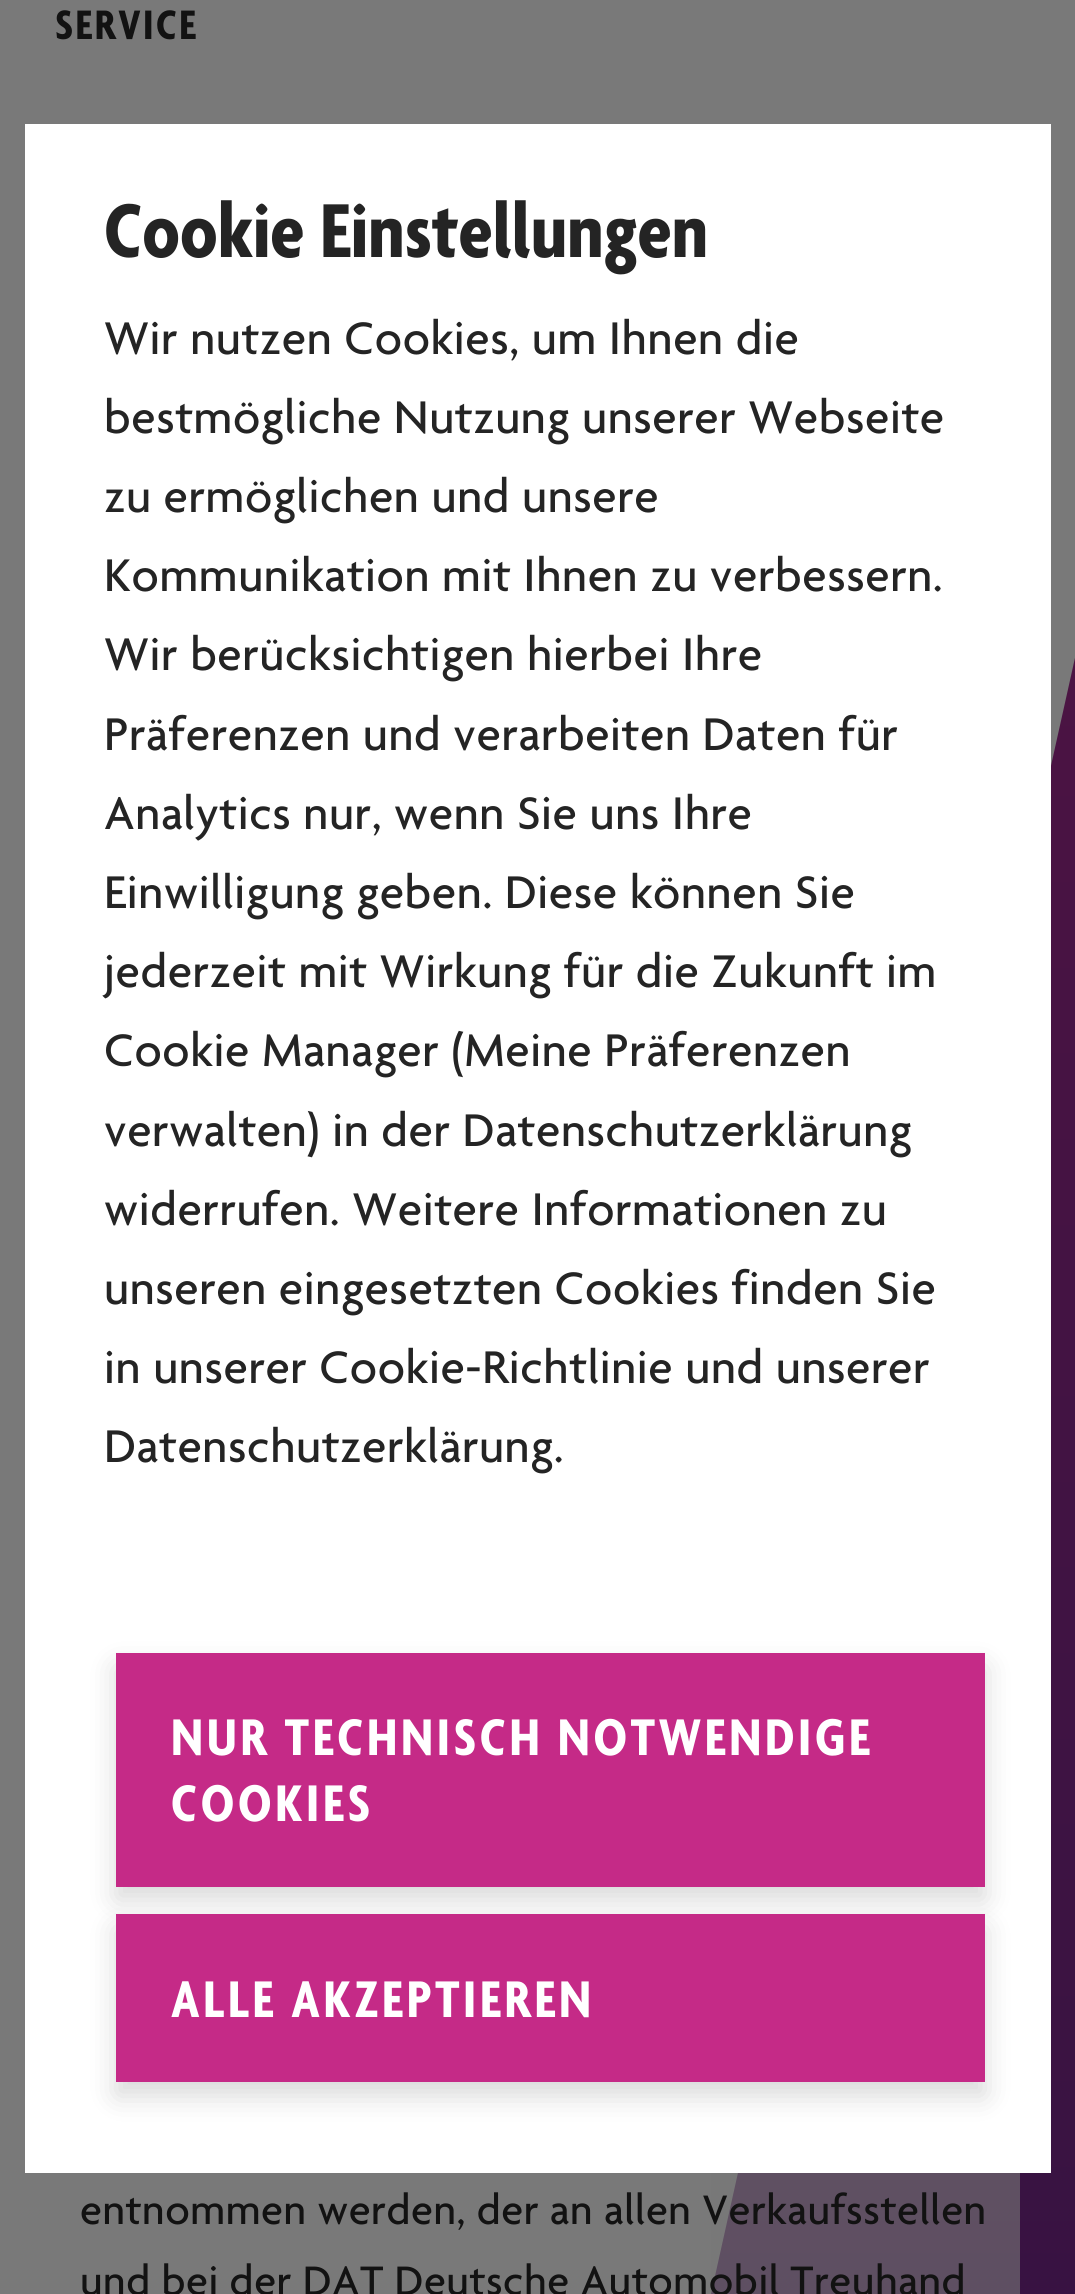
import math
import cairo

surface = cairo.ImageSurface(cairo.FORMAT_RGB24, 1075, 2294)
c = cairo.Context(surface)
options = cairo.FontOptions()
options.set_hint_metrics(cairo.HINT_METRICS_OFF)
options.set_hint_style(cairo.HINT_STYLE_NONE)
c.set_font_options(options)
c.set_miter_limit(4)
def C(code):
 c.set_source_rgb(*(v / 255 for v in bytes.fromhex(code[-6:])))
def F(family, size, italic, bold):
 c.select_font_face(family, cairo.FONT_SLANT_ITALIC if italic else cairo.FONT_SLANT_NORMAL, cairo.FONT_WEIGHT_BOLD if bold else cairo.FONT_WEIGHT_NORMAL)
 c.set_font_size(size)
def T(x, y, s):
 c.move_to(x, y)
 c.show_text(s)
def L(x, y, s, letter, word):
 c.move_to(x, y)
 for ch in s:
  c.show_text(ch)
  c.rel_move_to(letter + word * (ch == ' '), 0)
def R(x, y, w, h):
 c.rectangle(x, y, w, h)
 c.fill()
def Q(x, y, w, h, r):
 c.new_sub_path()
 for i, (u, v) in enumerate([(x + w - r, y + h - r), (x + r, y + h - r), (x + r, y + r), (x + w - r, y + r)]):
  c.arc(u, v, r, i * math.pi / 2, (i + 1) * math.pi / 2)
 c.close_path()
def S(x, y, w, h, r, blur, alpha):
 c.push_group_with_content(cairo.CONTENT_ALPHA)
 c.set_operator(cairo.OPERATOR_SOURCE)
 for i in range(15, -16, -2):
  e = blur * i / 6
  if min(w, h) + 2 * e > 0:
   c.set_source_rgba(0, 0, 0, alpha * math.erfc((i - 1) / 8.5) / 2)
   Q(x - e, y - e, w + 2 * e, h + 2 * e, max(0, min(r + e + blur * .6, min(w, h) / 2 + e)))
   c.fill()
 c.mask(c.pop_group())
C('797979')
c.paint()
gradient = cairo.LinearGradient(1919,-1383,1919,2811)
gradient.add_color_stop_rgba(0,0.388,0.082,0.267,1)
gradient.add_color_stop_rgba(1,0.196,0.071,0.259,1)
c.set_source(gradient)
c.set_fill_rule(cairo.FILL_RULE_EVEN_ODD)
c.new_path()
c.move_to(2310,-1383)
c.line_to(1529,-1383)
c.line_to(596,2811)
c.line_to(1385,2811)
c.line_to(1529,2103)
c.line_to(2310,2103)
c.line_to(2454,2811)
c.line_to(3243,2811)
c.close_path()
c.move_to(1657,1448)
c.line_to(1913,-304)
c.line_to(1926,-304)
c.line_to(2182,1448)
c.close_path()
c.fill()
F('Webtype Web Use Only',44.55,0,1)
C('121212')
L(55,39,'SERVICE',2.5,0)
c.set_source_rgba(0.475,0.475,0.475,0.6)
R(711,2173,309,121)
F('Webtype Web Use Only Medium',44.55,0,0)
C('121212')
L(80,2224,'entnommen werden, der an allen Verkaufsstellen',.55,0)
L(80,2295,'und bei der DAT Deutsche Automobil Treuhand',.55,0)
C('ffffff')
R(25,124,1026,2049)
F('Webtype Web Use Only',82.5,0,1)
C('242424')
T(104,257,'Cookie Einstellungen')
F('Webtype Web Use Only Medium',49.5,0,0)
L(104,354,'Wir nutzen Cookies, um Ihnen die',.6,0)
L(104,433,'bestmögliche Nutzung unserer Webseite',.6,0)
L(104,512,'zu ermöglichen und unsere',.6,0)
L(104,591,'Kommunikation mit Ihnen zu verbessern.',.6,0)
L(104,670,'Wir berücksichtigen hierbei Ihre',.6,0)
L(104,750,'Präferenzen und verarbeiten Daten für',.6,0)
L(104,829,'Analytics nur, wenn Sie uns Ihre',.6,0)
L(104,908,'Einwilligung geben. Diese können Sie',.6,0)
L(104,987,'jederzeit mit Wirkung für die Zukunft im',.6,0)
L(104,1066,'Cookie Manager (Meine Präferenzen',.6,0)
L(104,1146,'verwalten) in der Datenschutzerklärung',.6,0)
L(104,1225,'widerrufen. Weitere Informationen zu',.6,0)
L(104,1304,'unseren eingesetzten Cookies finden Sie',.6,0)
L(104,1383,'in unserer Cookie-Richtlinie und unserer',.6,0)
L(104,1462,'Datenschutzerklärung.',.6,0)
C('000000')
S(116,1667,869,233,0,14,.15)
C('c52a87')
R(116,1653,869,234)
F('Webtype Web Use Only',55.75,0,1)
C('ffffff')
L(171,1755,'NUR TECHNISCH NOTWENDIGE',3.75,0)
L(171,1821,'COOKIES',3.75,0)
C('000000')
S(116,1928,869,168,0,14,.15)
C('c52a87')
R(116,1914,869,168)
C('ffffff')
L(171,2017,'ALLE AKZEPTIEREN',3.75,0)
surface.write_to_png('o.png')
